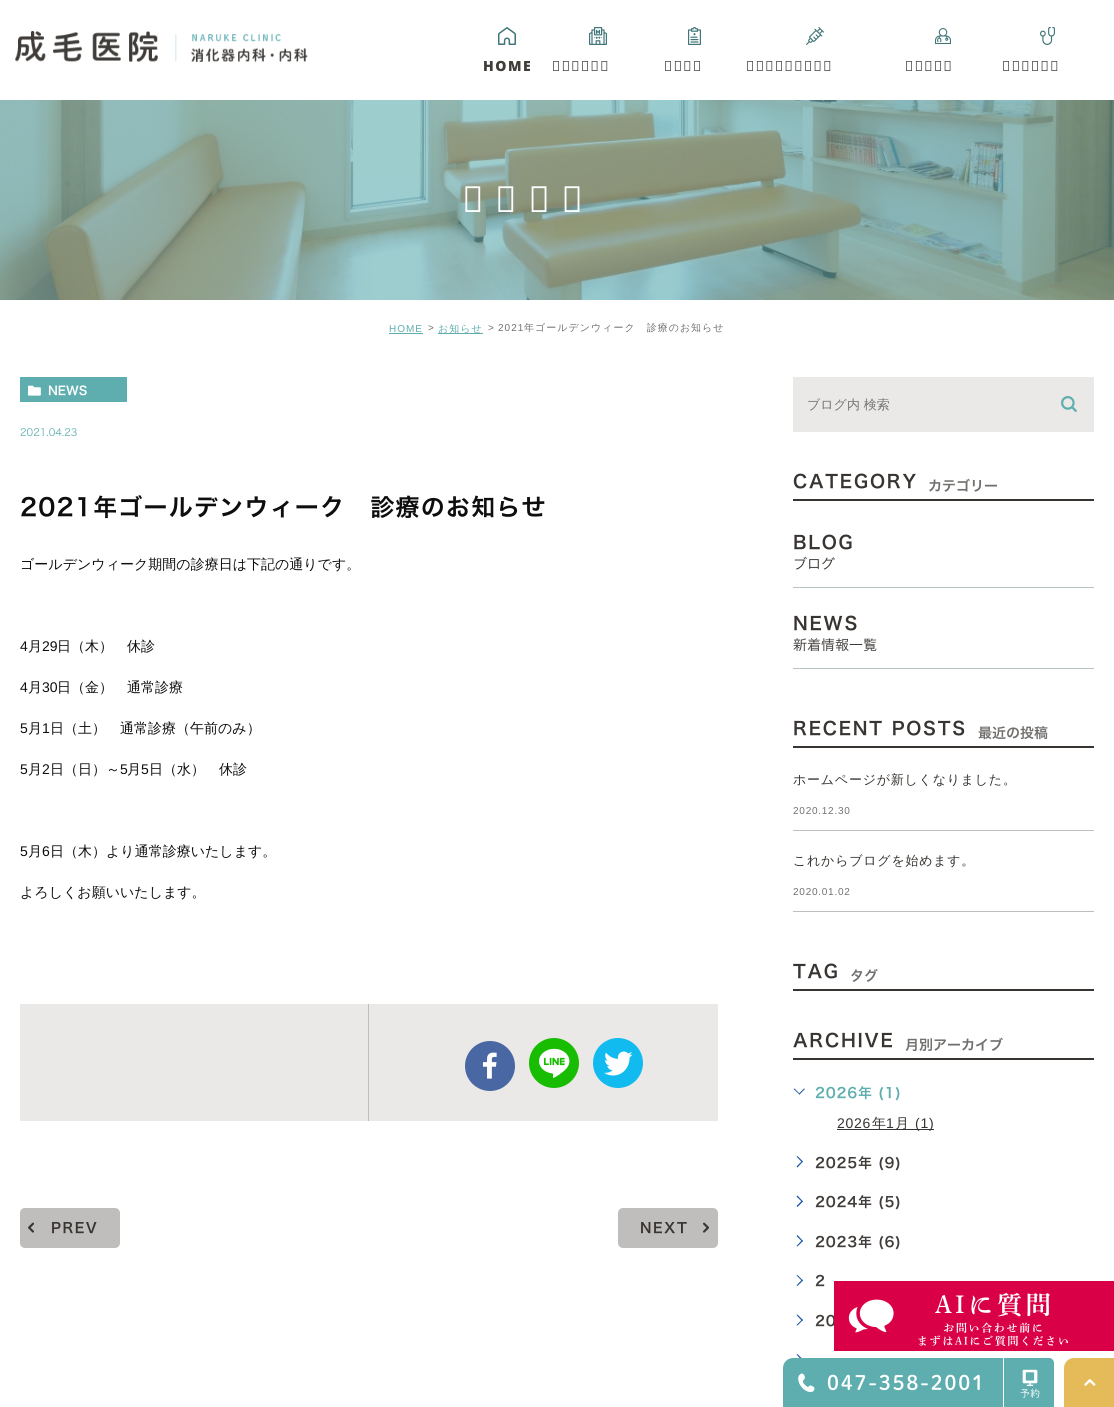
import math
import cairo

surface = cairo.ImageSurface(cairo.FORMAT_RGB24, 1114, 1407)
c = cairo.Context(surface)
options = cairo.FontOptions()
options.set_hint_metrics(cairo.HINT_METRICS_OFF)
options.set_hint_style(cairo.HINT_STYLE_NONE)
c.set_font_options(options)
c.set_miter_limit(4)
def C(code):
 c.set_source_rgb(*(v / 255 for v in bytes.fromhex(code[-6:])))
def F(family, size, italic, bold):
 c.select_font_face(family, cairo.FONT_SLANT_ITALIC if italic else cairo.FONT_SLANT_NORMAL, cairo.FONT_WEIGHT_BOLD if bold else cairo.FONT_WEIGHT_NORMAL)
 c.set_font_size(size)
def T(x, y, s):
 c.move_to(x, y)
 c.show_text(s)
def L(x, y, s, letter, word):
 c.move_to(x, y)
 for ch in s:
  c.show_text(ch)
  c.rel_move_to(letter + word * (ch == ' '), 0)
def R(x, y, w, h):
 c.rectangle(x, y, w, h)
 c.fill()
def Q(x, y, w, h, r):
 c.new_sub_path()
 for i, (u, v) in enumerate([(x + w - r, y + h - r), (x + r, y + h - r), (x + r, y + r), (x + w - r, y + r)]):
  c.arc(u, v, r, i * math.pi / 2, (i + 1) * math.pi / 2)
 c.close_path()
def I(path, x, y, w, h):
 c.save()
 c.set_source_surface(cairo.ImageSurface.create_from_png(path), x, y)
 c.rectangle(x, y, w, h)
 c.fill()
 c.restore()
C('ffffff')
c.paint()
I('1.png',15,31,293,31)
I('2.png',498,27,18,18)
F('Noto Sans Black',14,0,0)
C('3f3c39')
L(483,71,'HOME',1.5,0)
I('3.png',589,27,18,18)
L(552,71,'当院について',1.5,0)
I('4.png',688,27,13,18)
L(664,71,'診療内容',1.5,0)
I('5.png',806,27,18,18)
L(746,71,'健康診断・予防接種',1.5,0)
I('6.png',935,28,16,16)
L(905,71,'内視鏡検査',1.5,0)
I('7.png',1040,27,15,18)
L(1002,71,'各種専門外来',1.5,0)
I('8.png',0,100,1114,200)
F('Noto Sans Thin',36,0,0)
C('ffffff')
L(462,212,'お知らせ',11.5,0)
F('Liberation Sans',10,0,0)
C('5eaeaf')
L(389,332,'HOME',1,0)
R(389,333,34,1)
C('72706e')
L(428,331,'>',1,0)
C('5eaeaf')
R(438,333,45,1)
F('WenQuanYi Zen Hei Medium',10,0,0)
L(438,332,'お知らせ',1,0)
F('Liberation Sans',10,0,0)
C('72706e')
L(488,331,'>',1,0)
L(498,331,'2021',1,0)
F('WenQuanYi Zen Hei Medium',10,0,0)
L(524,331,'年ゴールデンウィーク　診療のお知らせ',1,0)
C('5eaeaf')
R(20,377,107,25)
I('9.png',28,385,13,11)
F('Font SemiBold',12,0,0)
C('ffffff')
T(48,395,'NEWS')
F('Font Light',10,0,0)
C('5eaeaf')
T(20,436,'2021.04.23')
F('Font SemiBold',24,0,0)
C('0f0e0e')
L(20,516,'2021年ゴールデンウィーク　診療のお知らせ',1.2,0)
F('WenQuanYi Zen Hei Medium',14,0,0)
T(20,569,'ゴールデンウィーク期間の診療日は下記の通りです。')
F('Liberation Sans',14,0,0)
T(20,651,'4')
F('WenQuanYi Zen Hei Medium',14,0,0)
T(28,651,'月')
F('Liberation Sans',14,0,0)
T(42,651,'29')
F('WenQuanYi Zen Hei Medium',14,0,0)
T(57,651,'日（木）　休診')
F('Liberation Sans',14,0,0)
T(20,692,'4')
F('WenQuanYi Zen Hei Medium',14,0,0)
T(28,692,'月')
F('Liberation Sans',14,0,0)
T(42,692,'30')
F('WenQuanYi Zen Hei Medium',14,0,0)
T(57,692,'日（金）　通常診療')
F('Liberation Sans',14,0,0)
T(20,733,'5')
F('WenQuanYi Zen Hei Medium',14,0,0)
T(28,733,'月')
F('Liberation Sans',14,0,0)
T(42,733,'1')
F('WenQuanYi Zen Hei Medium',14,0,0)
T(50,733,'日（土）　通常診療（午前のみ）')
F('Liberation Sans',14,0,0)
T(20,774,'5')
F('WenQuanYi Zen Hei Medium',14,0,0)
T(28,774,'月')
F('Liberation Sans',14,0,0)
T(42,774,'2')
F('WenQuanYi Zen Hei Medium',14,0,0)
T(50,774,'日（日）～')
F('Liberation Sans',14,0,0)
T(120,774,'5')
F('WenQuanYi Zen Hei Medium',14,0,0)
T(127,774,'月')
F('Liberation Sans',14,0,0)
T(141,774,'5')
F('WenQuanYi Zen Hei Medium',14,0,0)
T(149,774,'日（水）　休診')
F('Liberation Sans',14,0,0)
T(20,856,'5')
F('WenQuanYi Zen Hei Medium',14,0,0)
T(28,856,'月')
F('Liberation Sans',14,0,0)
T(42,856,'6')
F('WenQuanYi Zen Hei Medium',14,0,0)
T(50,856,'日（木）より通常診療いたします。')
T(20,897,'よろしくお願いいたします。')
C('ebe9e7')
R(20,1004,698,117)
C('bfbebd')
R(368,1004,1,117)
C('4967a3')
c.new_path()
c.arc(490,1066,25,0,2 * math.pi)
c.fill()
I('10.png',483,1052,14,27)
C('18bc01')
c.arc(554,1063,25,0,2 * math.pi)
c.fill()
I('11.png',539,1048,31,30)
C('11bbef')
c.arc(618,1063,25,0,2 * math.pi)
c.fill()
I('12.png',604,1051,29,25)
C('bfbebd')
Q(20,1208,100,40,5)
c.fill()
I('13.png',28,1222,6,11)
F('Font SemiBold',14,0,0)
C('373431')
L(51,1233,'PREV',1.5,0)
C('bfbebd')
Q(618,1208,100,40,5)
c.fill()
C('373431')
L(640,1233,'NEXT',1.5,0)
I('14.png',703,1222,6,11)
C('ebe9e7')
R(793,377,301,55)
F('WenQuanYi Zen Hei Medium',13,0,0)
C('757575')
T(807,409,'ブログ内 検索')
I('15.png',1061,396,16,16)
C('373431')
R(793,499,301,2)
F('Font SemiBold',18,0,0)
L(793,488,'CATEGORY',1.75,0)
F('Font SemiBold',14,0,0)
C('72706e')
T(928,491,'カテゴリー')
C('b8c2c1')
R(793,587,301,1)
F('Font SemiBold',18,0,0)
C('373431')
L(793,549,'BLOG',1.75,0)
F('Font Light',14,0,0)
T(793,569,'ブログ')
C('b8c2c1')
R(793,668,301,1)
F('Font SemiBold',18,0,0)
C('373431')
L(793,630,'NEWS',1.75,0)
F('Font Light',14,0,0)
T(793,650,'新着情報一覧')
R(793,746,301,2)
F('Font SemiBold',18,0,0)
L(793,735,'RECENT POSTS',1.75,0)
F('Font SemiBold',14,0,0)
C('72706e')
T(978,738,'最近の投稿')
C('bfbebd')
R(793,830,301,1)
F('WenQuanYi Zen Hei Medium',13,0,0)
C('373431')
L(793,784,'ホームページが新しくなりました。',.75,0)
F('Liberation Sans',10,0,0)
C('72706e')
L(793,814,'2020.12.30',.75,0)
C('bfbebd')
R(793,911,301,1)
F('WenQuanYi Zen Hei Medium',13,0,0)
C('373431')
L(793,865,'これからブログを始めます。',.75,0)
F('Liberation Sans',10,0,0)
C('72706e')
L(793,895,'2020.01.02',.75,0)
C('373431')
R(793,989,301,2)
F('Font SemiBold',18,0,0)
L(793,978,'TAG',1.75,0)
F('Font SemiBold',14,0,0)
C('72706e')
T(850,981,'タグ')
C('373431')
R(793,1058,301,2)
F('Font SemiBold',18,0,0)
L(793,1047,'ARCHIVE',1.75,0)
F('Font SemiBold',14,0,0)
C('72706e')
T(905,1050,'月別アーカイブ')
C('1f5aa5')
c.new_path()
c.move_to(804,1088.5)
c.line_to(805,1089)
c.line_to(799.5,1094.5)
c.line_to(798.5,1094)
c.close_path()
c.fill()
c.new_path()
c.move_to(794.5,1088.5)
c.line_to(800,1094)
c.line_to(799.5,1094.5)
c.line_to(793.5,1089)
c.close_path()
c.fill()
C('5eaeaf')
L(815,1098,'2026年 (1)',.75,0)
F('Liberation Sans',14,0,0)
C('373431')
L(837,1128,'2026',.75,0)
R(837,1129,97,1)
F('WenQuanYi Zen Hei Medium',14,0,0)
L(872,1128,'年',.75,0)
F('Liberation Sans',14,0,0)
L(886,1128,'1',.75,0)
F('WenQuanYi Zen Hei Medium',14,0,0)
L(895,1128,'月',.75,0)
F('Liberation Sans',14,0,0)
L(915,1128,'(1)',.75,0)
C('1f5aa5')
c.new_path()
c.move_to(796.5,1156.5)
c.line_to(797.5,1156)
c.line_to(803,1161.5)
c.line_to(802,1162.5)
c.close_path()
c.fill()
c.new_path()
c.move_to(796.5,1166.5)
c.line_to(802,1161)
c.line_to(803,1161.5)
c.line_to(797.5,1167.5)
c.close_path()
c.fill()
F('Font SemiBold',14,0,0)
C('3f3c39')
L(815,1168,'2025年 (9)',.75,0)
C('1f5aa5')
c.new_path()
c.move_to(796.5,1196.5)
c.line_to(797.5,1195.5)
c.line_to(803,1201.5)
c.line_to(802,1202)
c.close_path()
c.fill()
c.new_path()
c.move_to(796.5,1206)
c.line_to(802,1200.5)
c.line_to(803,1201.5)
c.line_to(797.5,1207)
c.close_path()
c.fill()
C('3f3c39')
L(815,1207,'2024年 (5)',.75,0)
C('1f5aa5')
c.new_path()
c.move_to(796.5,1236)
c.line_to(797.5,1235)
c.line_to(803,1241)
c.line_to(802,1241.5)
c.close_path()
c.fill()
c.new_path()
c.move_to(796.5,1246)
c.line_to(802,1240)
c.line_to(803,1241)
c.line_to(797.5,1246.5)
c.close_path()
c.fill()
C('3f3c39')
L(815,1247,'2023年 (6)',.75,0)
C('1f5aa5')
c.new_path()
c.move_to(796.5,1275.5)
c.line_to(797.5,1275)
c.line_to(803,1280.5)
c.line_to(802,1281)
c.close_path()
c.fill()
c.new_path()
c.move_to(796.5,1285.5)
c.line_to(802,1279.5)
c.line_to(803,1280.5)
c.line_to(797.5,1286)
c.close_path()
c.fill()
C('3f3c39')
L(815,1286,'2',.75,0)
C('1f5aa5')
c.new_path()
c.move_to(796.5,1315)
c.line_to(797.5,1314.5)
c.line_to(803,1320)
c.line_to(802,1321)
c.close_path()
c.fill()
c.new_path()
c.move_to(796.5,1325)
c.line_to(802,1319.5)
c.line_to(803,1320)
c.line_to(797.5,1325.5)
c.close_path()
c.move_to(796.5,1354.5)
c.line_to(797.5,1354)
c.line_to(803,1359.5)
c.line_to(802,1360.5)
c.close_path()
c.fill()
C('3f3c39')
L(815,1326,'20',.75,0)
I('16.png',834,1281,280,70)
I('17.png',783,1358,220,49)
I('18.png',1004,1358,50,49)
I('19.png',1064,1358,50,49)
surface.write_to_png('o.png')
